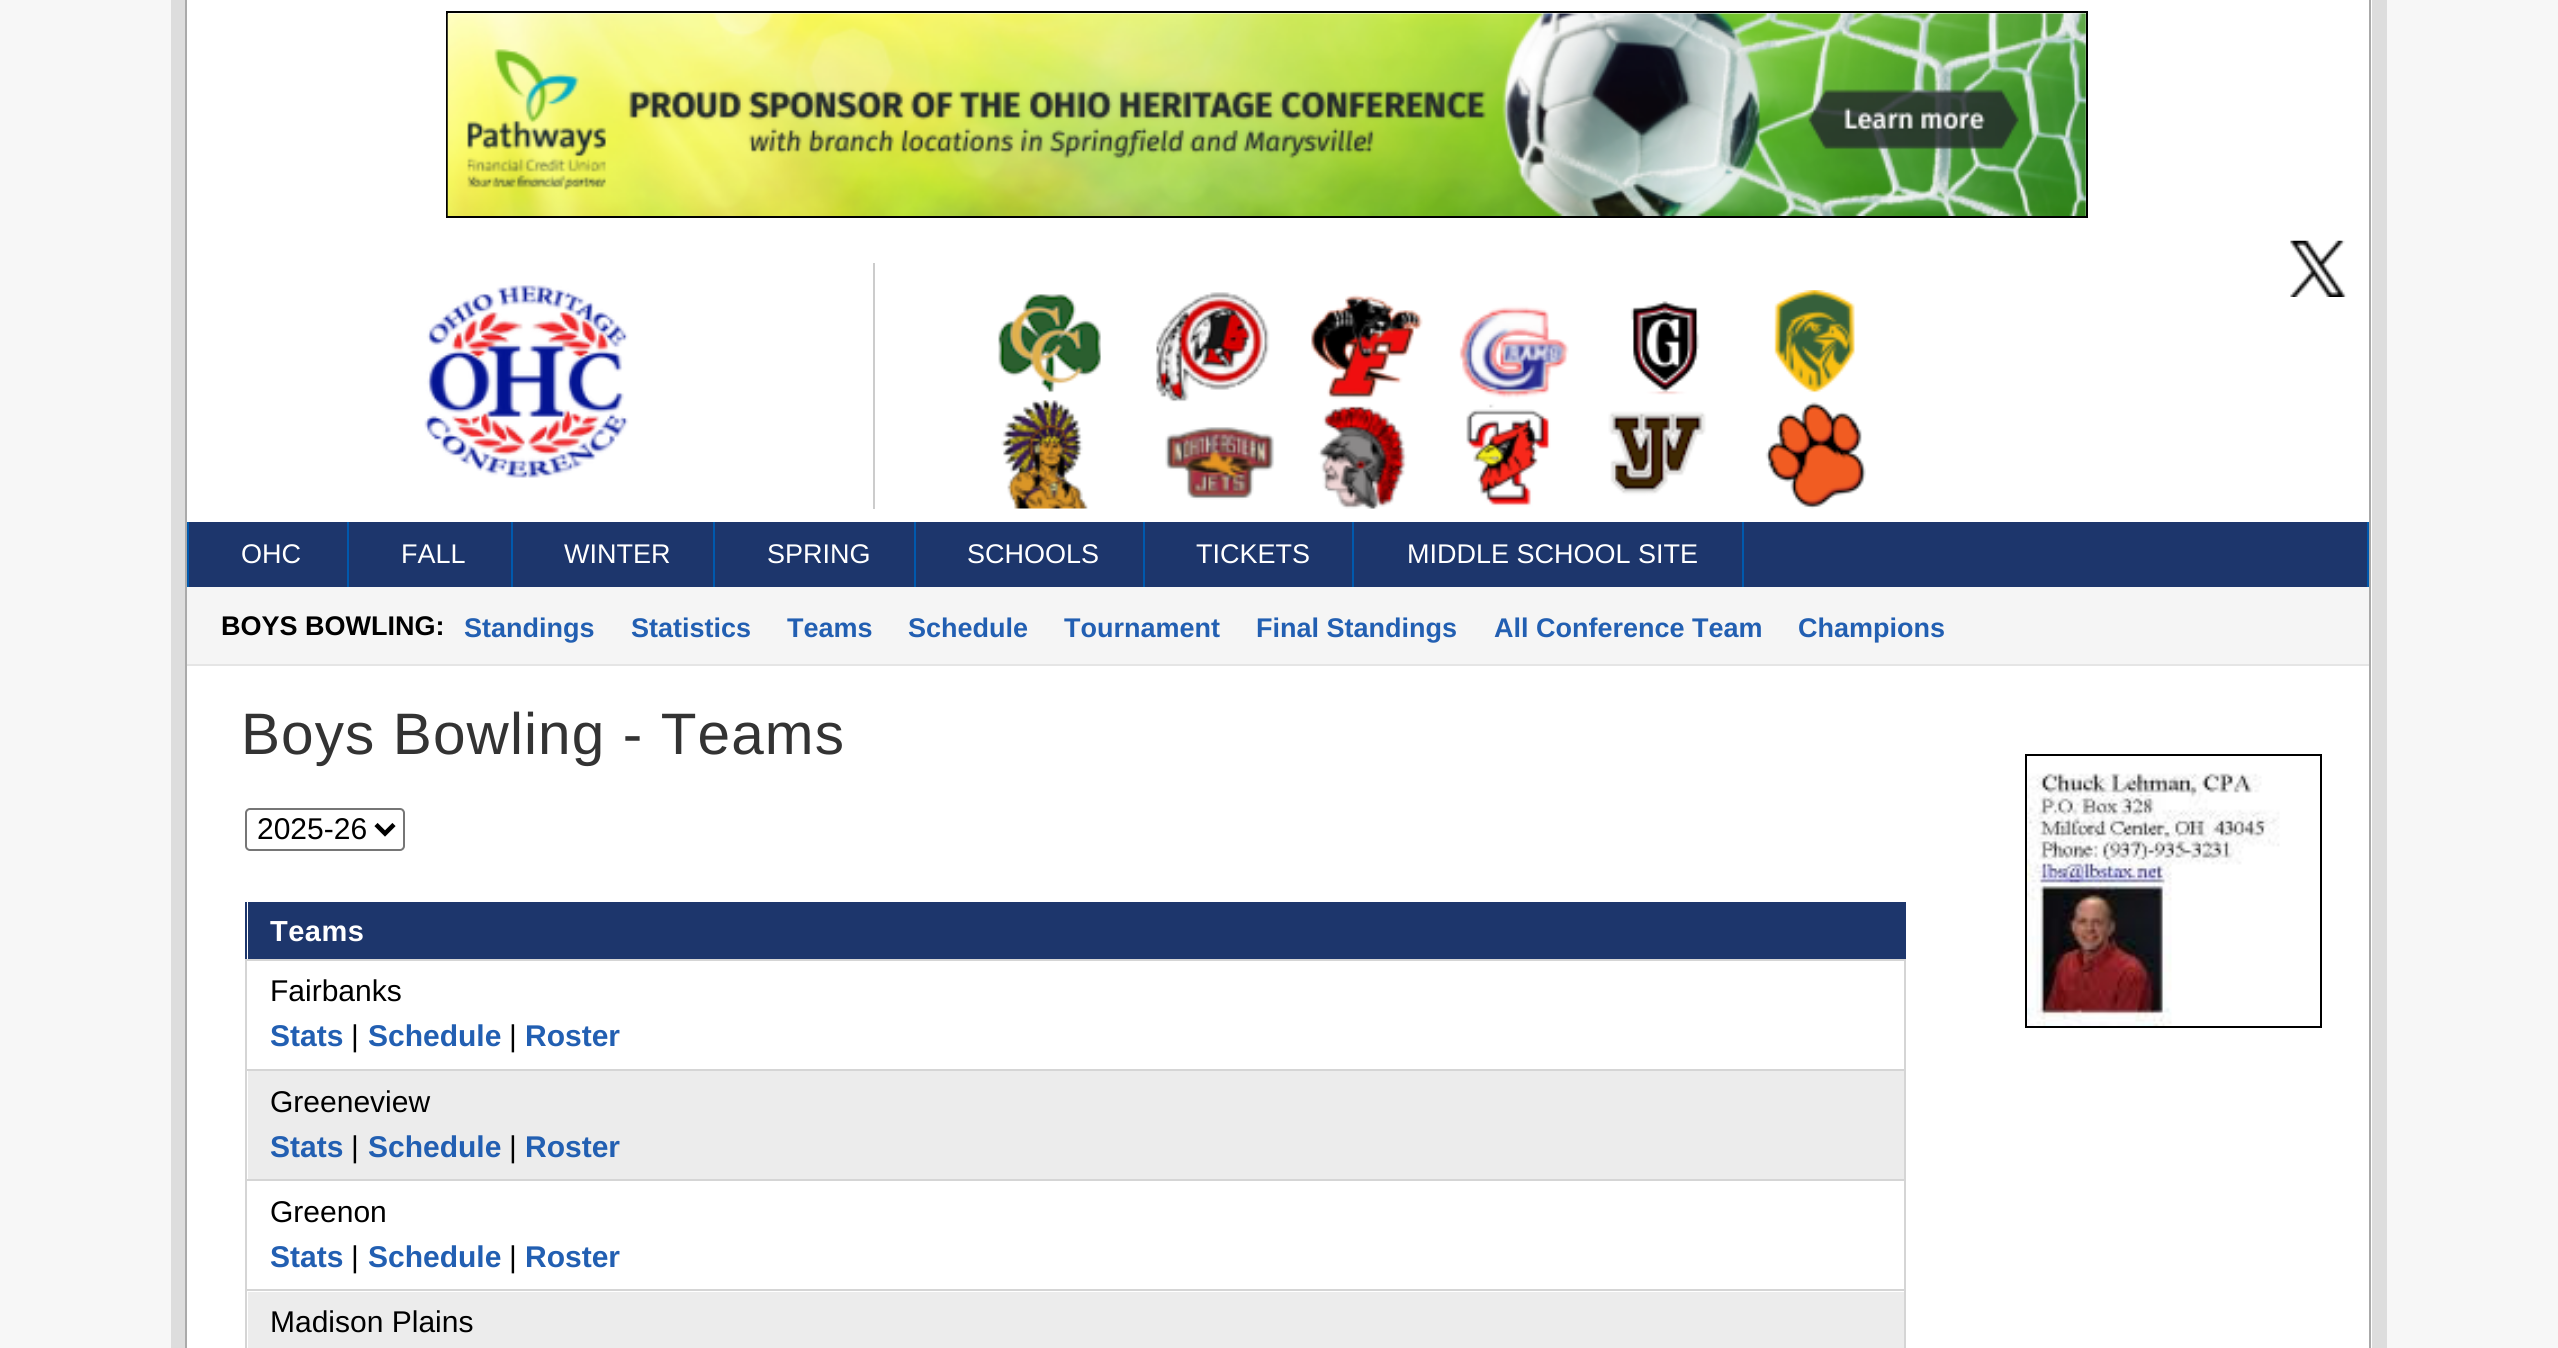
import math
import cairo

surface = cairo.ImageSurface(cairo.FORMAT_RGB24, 2558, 1348)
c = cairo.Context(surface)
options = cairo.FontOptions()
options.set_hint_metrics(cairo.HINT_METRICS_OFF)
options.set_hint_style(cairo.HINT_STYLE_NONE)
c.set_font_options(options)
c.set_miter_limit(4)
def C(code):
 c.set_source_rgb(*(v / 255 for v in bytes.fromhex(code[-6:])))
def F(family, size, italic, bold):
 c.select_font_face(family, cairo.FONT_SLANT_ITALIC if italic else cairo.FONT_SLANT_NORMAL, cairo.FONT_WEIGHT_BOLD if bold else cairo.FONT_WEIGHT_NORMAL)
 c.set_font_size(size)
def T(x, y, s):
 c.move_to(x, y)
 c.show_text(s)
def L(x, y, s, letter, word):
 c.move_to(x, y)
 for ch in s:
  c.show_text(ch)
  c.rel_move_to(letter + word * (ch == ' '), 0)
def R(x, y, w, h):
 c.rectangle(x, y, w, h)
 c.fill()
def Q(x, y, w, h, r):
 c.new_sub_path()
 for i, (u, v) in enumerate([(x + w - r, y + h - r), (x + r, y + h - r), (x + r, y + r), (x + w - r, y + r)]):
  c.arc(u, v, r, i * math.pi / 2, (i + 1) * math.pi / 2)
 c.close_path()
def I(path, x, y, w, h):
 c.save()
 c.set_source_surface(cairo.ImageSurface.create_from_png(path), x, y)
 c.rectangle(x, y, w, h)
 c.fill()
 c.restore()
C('f7f7f7')
c.paint()
C('dddddd')
R(171,0,2216,1348)
C('ffffff')
R(187,0,2185,1348)
C('aaaaaa')
R(2369,0,2,1348)
R(185,0,2,1348)
c.rectangle(447,12,1640,205)
C('000000')
c.stroke()
I('1.png',447,13,1639,203)
I('2.png',424,285,205,193)
C('cccccc')
R(873,263,2,246)
I('3.png',998,290,868,219)
I('4.png',2290,240,57,57)
C('1d366c')
R(189,522,2178,65)
C('0059ad')
R(187,522,2,68)
F('Liberation Sans',27,0,0)
C('ffffff')
T(241,563,'OHC')
C('0059ad')
R(347,522,2,68)
C('ffffff')
T(401,563,'FALL')
C('0059ad')
R(511,522,2,68)
C('ffffff')
T(564,563,'WINTER')
C('0059ad')
R(713,522,2,68)
C('ffffff')
T(767,563,'SPRING')
C('0059ad')
R(914,522,2,68)
C('ffffff')
T(967,563,'SCHOOLS')
C('0059ad')
R(1143,522,2,68)
C('ffffff')
T(1196,563,'TICKETS')
C('0059ad')
R(1352,522,2,68)
C('ffffff')
T(1407,563,'MIDDLE SCHOOL SITE')
C('0059ad')
R(2367,522,2,68)
R(1742,522,2,68)
C('f5f5f5')
R(187,587,2182,77)
C('e5e5e5')
R(187,664,2182,2)
F('Liberation Sans',27,0,1)
C('000000')
T(221,635,'BOYS BOWLING:')
C('225fb2')
T(464,637,'Standings')
T(631,637,'Statistics')
T(787,637,'Teams')
T(908,637,'Schedule')
T(1064,637,'Tournament')
T(1256,637,'Final Standings')
T(1494,637,'All Conference Team')
T(1798,637,'Champions')
F('Liberation Sans',58.5,0,0)
C('333333')
L(241,754,'Boys Bowling - Teams',1.1,0)
Q(246,809,158,41,4)
C('767676')
c.stroke()
c.new_path()
c.move_to(376,824.5)
c.line_to(385,833.5)
c.line_to(394,824.5)
C('000000')
c.set_line_width(4.5)
c.stroke()
F('Liberation Sans',30,0,0)
T(257,839,'2025-26')
C('1d366c')
R(248,902,1658,57)
R(245,902,2,59)
F('Liberation Sans',29,0,1)
C('ffffff')
L(270,941,'Teams',.5,0)
C('d5d5d5')
R(245,959,1661,2)
R(245,1069,1661,2)
R(245,1179,1661,2)
R(245,1289,1661,2)
R(1904,1289,2,59)
R(1904,1179,2,113)
R(1904,1069,2,112)
R(1904,959,2,112)
R(245,1289,2,59)
R(245,1179,2,113)
R(245,1069,2,112)
R(245,959,2,112)
F('Liberation Sans',30,0,0)
C('000000')
T(270,1001,'Fairbanks')
F('Liberation Sans',30,0,1)
C('225fb2')
T(270,1046,'Stats')
F('Liberation Sans',30,0,0)
C('000000')
T(351,1046,'|')
F('Liberation Sans',30,0,1)
C('225fb2')
T(368,1046,'Schedule')
F('Liberation Sans',30,0,0)
C('000000')
T(509,1046,'|')
F('Liberation Sans',30,0,1)
C('225fb2')
T(525,1046,'Roster')
C('ececec')
R(248,1071,1656,108)
F('Liberation Sans',30,0,0)
C('000000')
T(270,1112,'Greeneview')
F('Liberation Sans',30,0,1)
C('225fb2')
T(270,1157,'Stats')
F('Liberation Sans',30,0,0)
C('000000')
T(351,1157,'|')
F('Liberation Sans',30,0,1)
C('225fb2')
T(368,1157,'Schedule')
F('Liberation Sans',30,0,0)
C('000000')
T(509,1157,'|')
F('Liberation Sans',30,0,1)
C('225fb2')
T(525,1157,'Roster')
F('Liberation Sans',30,0,0)
C('000000')
T(270,1222,'Greenon')
F('Liberation Sans',30,0,1)
C('225fb2')
T(270,1267,'Stats')
F('Liberation Sans',30,0,0)
C('000000')
T(351,1267,'|')
F('Liberation Sans',30,0,1)
C('225fb2')
T(368,1267,'Schedule')
F('Liberation Sans',30,0,0)
C('000000')
T(509,1267,'|')
F('Liberation Sans',30,0,1)
C('225fb2')
T(525,1267,'Roster')
C('ececec')
R(248,1292,1656,56)
F('Liberation Sans',30,0,0)
C('000000')
T(270,1332,'Madison Plains')
c.rectangle(2026,755,295,272)
c.set_line_width(2)
c.stroke()
I('5.png',2027,773,253,253)
surface.write_to_png('o.png')
